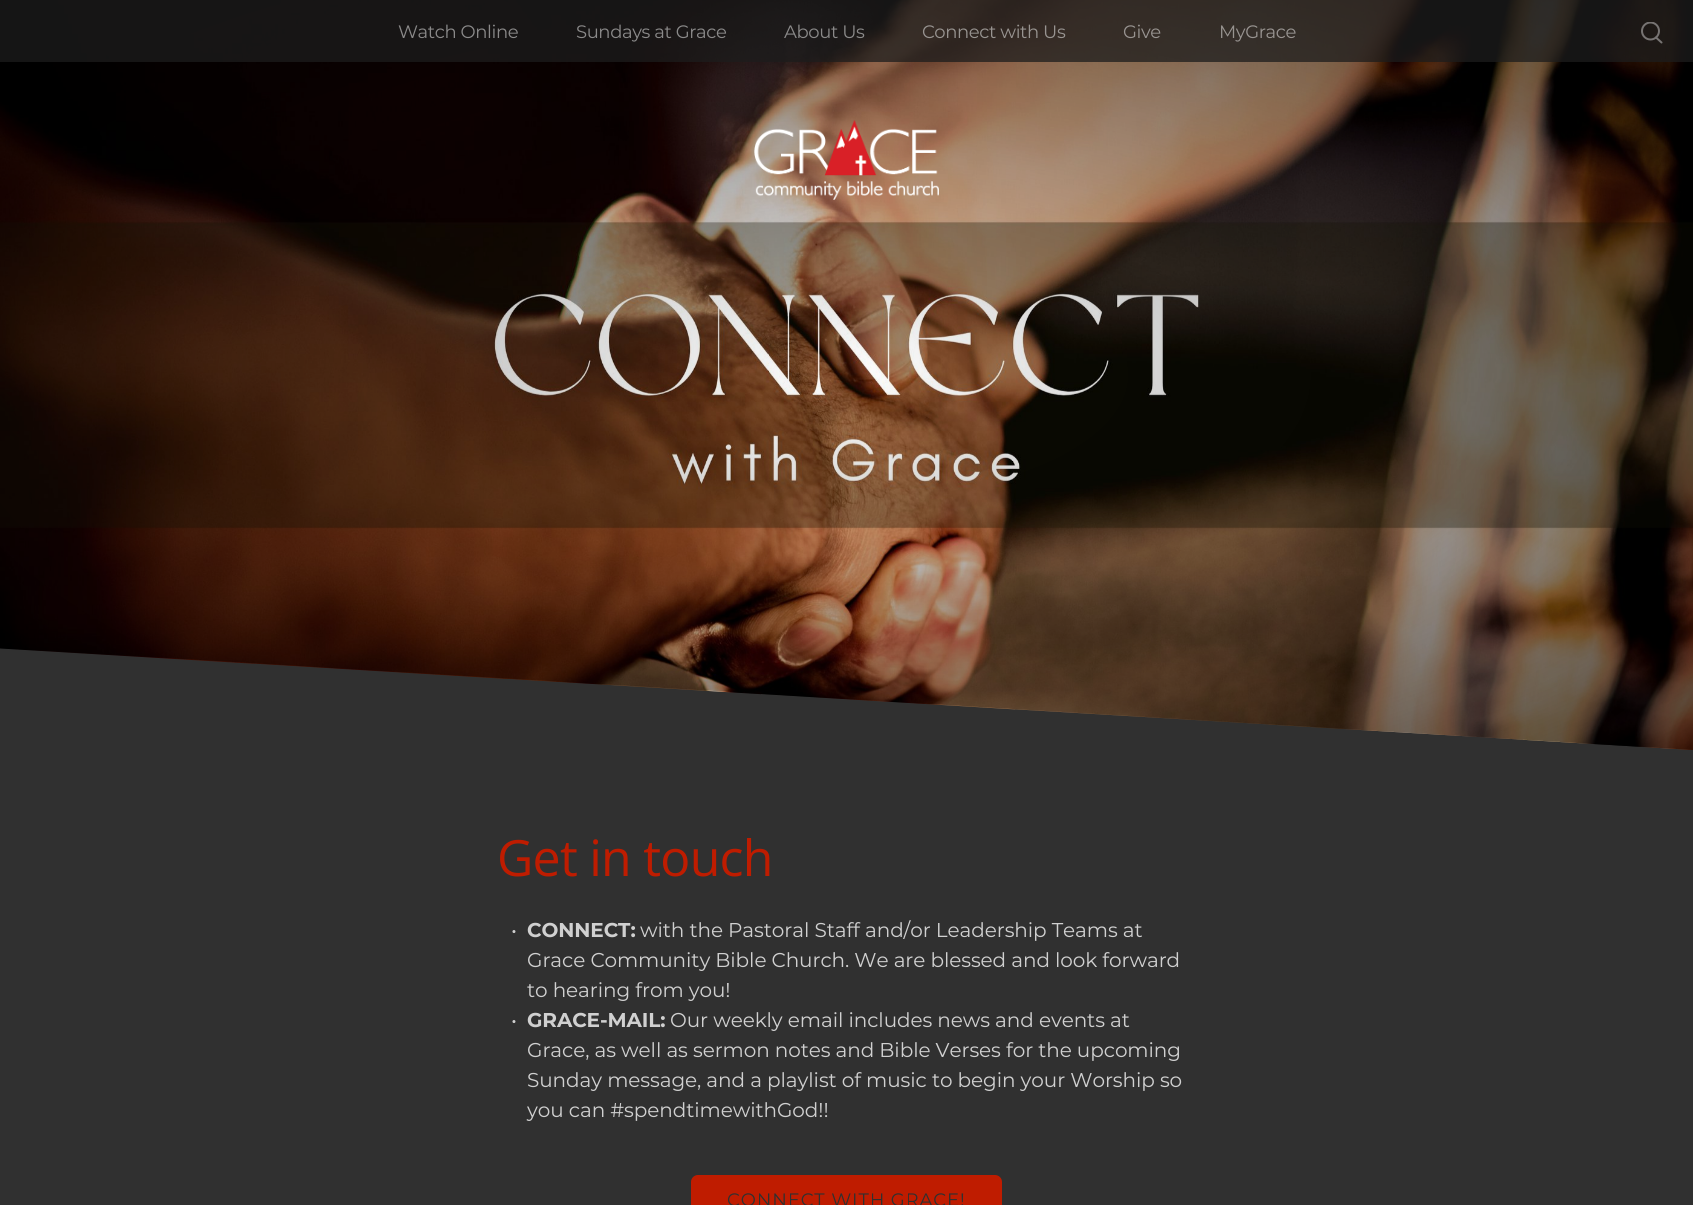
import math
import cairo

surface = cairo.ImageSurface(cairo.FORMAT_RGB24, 1693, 1205)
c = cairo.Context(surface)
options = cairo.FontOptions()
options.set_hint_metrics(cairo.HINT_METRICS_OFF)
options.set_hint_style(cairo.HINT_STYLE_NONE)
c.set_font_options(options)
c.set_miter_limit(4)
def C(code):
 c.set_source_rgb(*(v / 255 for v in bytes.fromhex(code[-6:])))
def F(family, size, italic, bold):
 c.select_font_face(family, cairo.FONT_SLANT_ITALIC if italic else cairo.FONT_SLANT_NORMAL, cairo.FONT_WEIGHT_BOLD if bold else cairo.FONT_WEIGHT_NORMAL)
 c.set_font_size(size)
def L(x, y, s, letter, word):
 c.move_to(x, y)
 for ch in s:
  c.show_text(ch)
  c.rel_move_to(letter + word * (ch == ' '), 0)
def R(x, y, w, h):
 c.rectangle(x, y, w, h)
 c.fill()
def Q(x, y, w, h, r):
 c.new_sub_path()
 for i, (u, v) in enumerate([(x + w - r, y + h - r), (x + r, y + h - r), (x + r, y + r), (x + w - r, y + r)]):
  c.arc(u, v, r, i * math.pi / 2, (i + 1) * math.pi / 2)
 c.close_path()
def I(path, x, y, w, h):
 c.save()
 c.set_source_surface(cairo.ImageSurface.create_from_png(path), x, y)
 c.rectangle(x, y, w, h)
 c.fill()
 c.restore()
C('303030')
c.paint()
I('1.png',0,0,1693,750)
gradient = cairo.RadialGradient(0,0,0,0,0,1)
gradient.set_matrix(cairo.Matrix(1 / 1197, 0, 0, 1 / 530, -1 * 847 / 1197, -1 * 375 / 530))
gradient.add_color_stop_rgba(0,0,0,0,0)
gradient.add_color_stop_rgba(1,0,0,0,.64)
c.set_source(gradient)
c.new_path()
c.move_to(0,0)
c.line_to(0,648)
c.line_to(1693,750)
c.line_to(1693,0)
c.close_path()
c.fill()
c.set_source_rgba(0.11,0.11,0.11,0.75)
R(0,0,1693,62)
F('Montserrat',18,0,0)
C('8b8a8a')
L(398,38,'Watch Online',-.4,0)
L(576,38,'Sundays at Grace',-.4,0)
L(784,38,'About Us',-.4,0)
C('989491')
L(922,38,'Connect with Us',-.4,0)
L(1123,38,'Give',-.4,0)
L(1219,38,'MyGrace',-.4,0)
c.save()
c.rectangle(1641,22,22,22)
c.clip()
c.arc(1650.5,31,8.5,0,2 * math.pi)
C('777473')
c.stroke()
c.restore()
c.new_path()
c.move_to(1656,37.5)
c.line_to(1661.5,42.5)
C('777473')
c.set_line_cap(cairo.LINE_CAP_ROUND)
c.stroke()
I('2.png',754,120,185,80)
F('Open Sans',50,0,0)
C('bf1c00')
L(497,876,'Get in touch',-.75,0)
F('Montserrat',20,0,0)
C('d0d0d0')
L(511,937,'•',-.08,0)
F('Montserrat',20,0,1)
L(527,937,'CONNECT:',-.08,0)
F('Montserrat',20,0,0)
L(640,937,'with the Pastoral Staff and/or Leadership Teams at',-.08,0)
L(527,967,'Grace Community Bible Church. We are blessed and look forward',-.08,0)
L(527,997,'to hearing from you!',-.08,0)
L(511,1027,'•',-.08,0)
F('Montserrat',20,0,1)
L(527,1027,'GRACE-MAIL:',-.08,0)
F('Montserrat',20,0,0)
L(670,1027,'Our weekly email includes news and events at',-.08,0)
L(527,1057,'Grace, as well as sermon notes and Bible Verses for the upcoming',-.08,0)
L(527,1087,'Sunday message, and a playlist of music to begin your Worship so',-.08,0)
L(527,1117,'you can #spendtimewithGod!!',-.08,0)
C('bf1c00')
Q(691,1175,311,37,7)
c.fill()
F('Montserrat',18,0,0)
C('303030')
L(727,1206,'CONNECT WITH GRACE!',.9,0)
surface.write_to_png('o.png')
